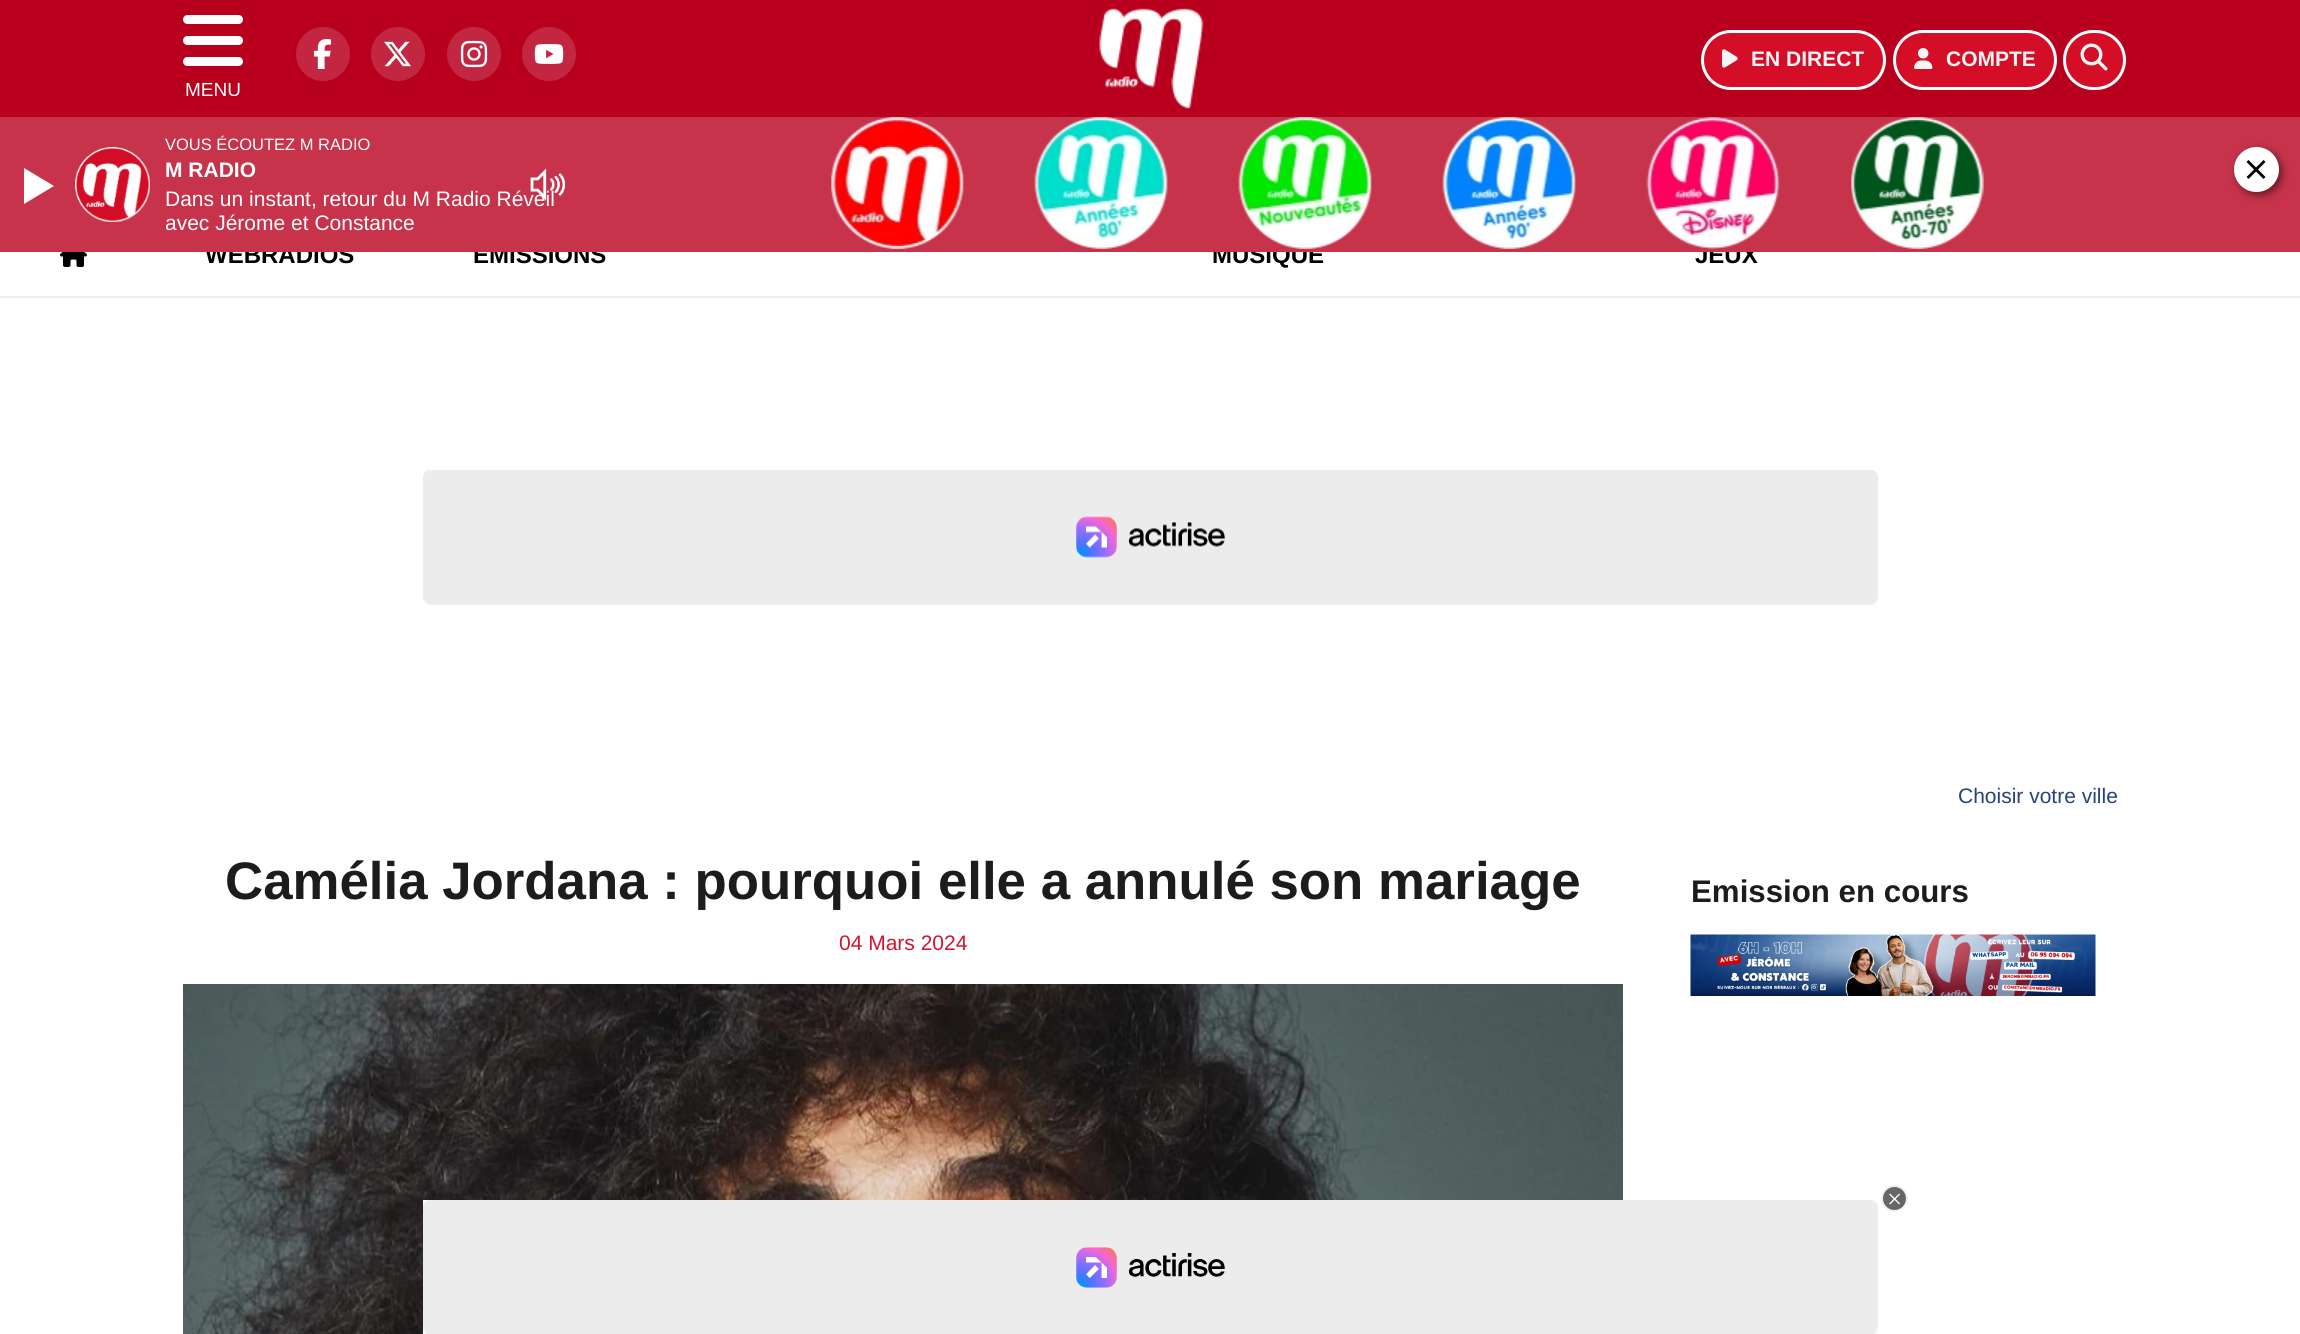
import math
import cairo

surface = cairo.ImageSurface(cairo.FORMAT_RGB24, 2300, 1334)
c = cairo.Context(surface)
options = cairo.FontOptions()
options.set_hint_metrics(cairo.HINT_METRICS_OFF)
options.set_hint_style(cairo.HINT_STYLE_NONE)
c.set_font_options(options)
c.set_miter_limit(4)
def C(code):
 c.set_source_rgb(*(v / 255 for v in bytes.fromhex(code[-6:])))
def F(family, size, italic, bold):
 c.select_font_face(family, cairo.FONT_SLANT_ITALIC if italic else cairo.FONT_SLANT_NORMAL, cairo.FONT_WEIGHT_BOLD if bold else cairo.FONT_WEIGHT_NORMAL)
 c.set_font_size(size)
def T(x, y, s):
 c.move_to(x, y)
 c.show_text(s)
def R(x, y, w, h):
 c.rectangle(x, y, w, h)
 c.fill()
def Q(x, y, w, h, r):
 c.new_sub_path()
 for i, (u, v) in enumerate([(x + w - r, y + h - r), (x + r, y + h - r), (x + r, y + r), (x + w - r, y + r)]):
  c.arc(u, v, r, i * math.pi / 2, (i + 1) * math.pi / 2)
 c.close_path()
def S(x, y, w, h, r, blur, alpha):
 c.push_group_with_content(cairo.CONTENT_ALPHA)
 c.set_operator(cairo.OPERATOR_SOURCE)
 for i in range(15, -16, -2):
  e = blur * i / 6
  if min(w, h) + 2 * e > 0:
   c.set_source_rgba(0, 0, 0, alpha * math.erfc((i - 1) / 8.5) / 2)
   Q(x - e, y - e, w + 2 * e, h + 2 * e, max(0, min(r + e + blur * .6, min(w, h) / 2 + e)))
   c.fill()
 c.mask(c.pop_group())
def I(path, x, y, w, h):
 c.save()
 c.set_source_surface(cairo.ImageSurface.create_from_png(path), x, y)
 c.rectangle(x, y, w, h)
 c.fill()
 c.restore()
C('ffffff')
c.paint()
C('b8001e')
R(0,0,2300,117)
C('c32640')
c.arc(323,54,27,0,2 * math.pi)
c.fill()
I('1.png',313,39,19,30)
c.arc(398,54,27,0,2 * math.pi)
c.fill()
I('2.png',384,41,27,26)
c.arc(474,54,27,0,2 * math.pi)
c.fill()
I('3.png',460,40,28,28)
c.arc(549,54,27,0,2 * math.pi)
c.fill()
I('4.png',534,44,30,20)
I('5.png',1099,8,105,101)
C('d50e28')
Q(1702.5,31.5,182,57,28.5)
c.fill_preserve()
C('ffffff')
c.set_line_width(3)
c.stroke()
I('6.png',1722,49,16,19)
F('Liberation Sans',21,0,1)
C('f5f5f5')
T(1751,66,'EN DIRECT')
C('d50e28')
Q(1894.5,31.5,161,57,28.5)
c.fill_preserve()
C('ffffff')
c.stroke()
I('7.png',1914,48,19,21)
C('f5f5f5')
T(1946,66,'COMPTE')
C('d50e28')
Q(2064.5,31.5,60,57,28.5)
c.fill_preserve()
C('ffffff')
c.stroke()
I('8.png',2080,43,28,28)
Q(183,15,60,9,4.5)
c.fill()
Q(183,36,60,9,4.5)
c.fill()
Q(183,57,60,9,4.5)
c.fill()
c.save()
c.rectangle(183,15,60,81)
c.clip()
F('Liberation Sans',19,0,0)
T(185,96,'MENU')
c.restore()
C('eeeeee')
R(0,296,2300,2)
I('9.png',60,252,27,15)
F('Liberation Sans',24,0,1)
C('000000')
T(205,263,'WEBRADIOS')
T(473,263,'EMISSIONS')
T(1212,263,'MUSIQUE')
T(1695,263,'JEUX')
I('10.png',423,470,1455,135)
F('Liberation Sans',21,0,0)
C('26427a')
T(1958,803,'Choisir votre ville')
F('Liberation Sans',52.8,0,1)
C('1c1c1c')
T(225,899,'Camélia Jordana : pourquoi elle a annulé son mariage')
F('Liberation Sans',21,0,0)
C('d3152f')
T(839,950,'04 Mars 2024')
I('11.png',183,984,1440,350)
F('Liberation Sans',31.25,0,1)
C('1c1c1c')
T(1691,902,'Emission en cours')
I('12.png',1690,934,406,62)
C('c6334b')
R(0,117,2300,135)
F('Liberation Sans',16.5,0,0)
C('ffffff')
T(165,150,'VOUS ÉCOUTEZ M RADIO')
I('13.png',75,147,75,75)
F('Liberation Sans',21,0,1)
T(165,177,'M RADIO')
F('Liberation Sans',21,0,0)
T(165,206,'Dans un instant, retour du M Radio Réveil')
T(165,230,'avec Jérome et Constance')
c.new_path()
c.move_to(24,204)
c.line_to(24,168)
c.line_to(54,186)
c.close_path()
c.fill()
I('14.png',530,168,36,33)
I('15.png',831,117,133,132)
I('16.png',1034,117,134,132)
I('17.png',1238,117,134,132)
I('18.png',1442,117,134,132)
I('19.png',1646,117,134,132)
I('20.png',1851,117,133,132)
C('000000')
S(2237,150,45,45,22.5,4,.5)
C('ffffff')
c.arc(2256.5,169.5,22.5,0,2 * math.pi)
c.fill()
C('000000')
c.new_path()
c.move_to(2248.5,160)
c.line_to(2265.5,177)
c.line_to(2263.5,179)
c.line_to(2246.5,162)
c.close_path()
c.fill()
c.new_path()
c.move_to(2246.5,177)
c.line_to(2263.5,160)
c.line_to(2265.5,162)
c.line_to(2248.5,179)
c.close_path()
c.fill()
C('ffffff')
R(423,1200,1200,134)
I('21.png',423,1200,1455,134)
C('666666')
c.arc(1894.5,1198.5,12.5,0,2 * math.pi)
c.fill_preserve()
C('f0f0f0')
c.set_line_width(2)
c.stroke()
F('Liberation Serif',27,0,0)
C('ffffff')
T(1887,1208,'×')
surface.write_to_png('o.png')
